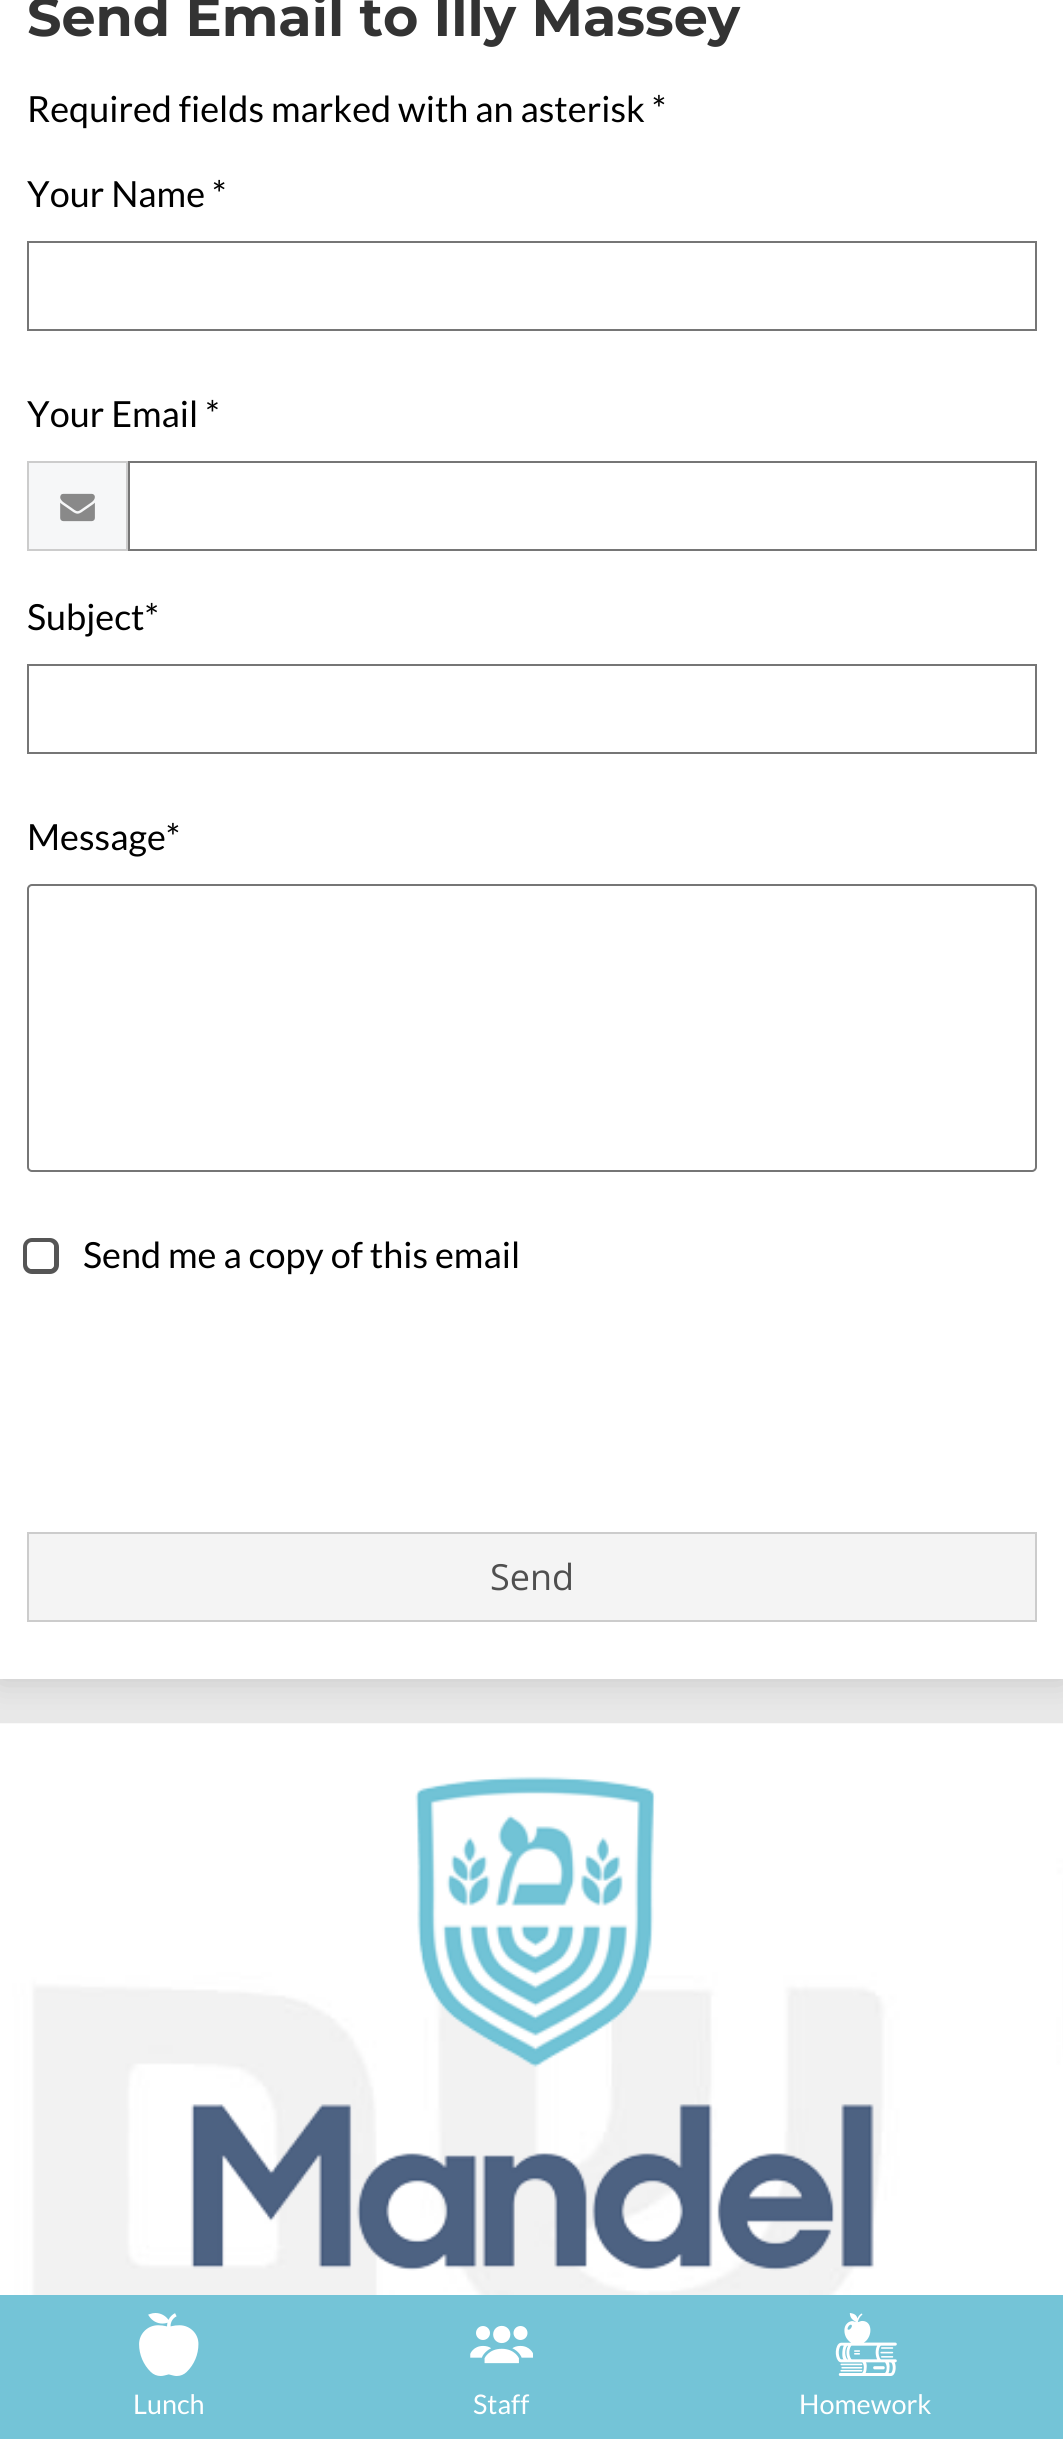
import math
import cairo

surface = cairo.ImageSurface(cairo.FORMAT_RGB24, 1063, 2439)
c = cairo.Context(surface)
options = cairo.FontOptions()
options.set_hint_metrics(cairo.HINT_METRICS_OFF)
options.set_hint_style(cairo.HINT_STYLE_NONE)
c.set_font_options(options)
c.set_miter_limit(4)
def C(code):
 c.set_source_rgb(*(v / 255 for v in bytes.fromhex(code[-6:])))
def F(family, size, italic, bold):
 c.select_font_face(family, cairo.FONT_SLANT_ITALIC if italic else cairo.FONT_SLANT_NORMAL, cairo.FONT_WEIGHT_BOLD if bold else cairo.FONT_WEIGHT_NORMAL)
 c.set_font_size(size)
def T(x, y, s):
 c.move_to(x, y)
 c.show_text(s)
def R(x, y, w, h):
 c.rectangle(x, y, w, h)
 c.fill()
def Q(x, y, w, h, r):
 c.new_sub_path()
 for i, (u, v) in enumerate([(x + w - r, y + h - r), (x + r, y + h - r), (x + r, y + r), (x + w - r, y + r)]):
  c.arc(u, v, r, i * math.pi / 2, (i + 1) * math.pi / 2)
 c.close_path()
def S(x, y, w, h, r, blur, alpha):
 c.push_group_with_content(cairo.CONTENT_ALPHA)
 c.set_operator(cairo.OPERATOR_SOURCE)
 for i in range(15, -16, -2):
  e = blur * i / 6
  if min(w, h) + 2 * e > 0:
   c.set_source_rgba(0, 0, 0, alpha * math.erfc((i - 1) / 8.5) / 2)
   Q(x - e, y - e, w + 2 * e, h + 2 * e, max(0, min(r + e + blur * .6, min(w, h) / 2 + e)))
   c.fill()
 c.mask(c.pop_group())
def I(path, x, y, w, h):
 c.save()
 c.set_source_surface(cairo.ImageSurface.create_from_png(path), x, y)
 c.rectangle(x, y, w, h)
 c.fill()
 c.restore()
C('e8e8e8')
c.paint()
C('000000')
S(0,-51,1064,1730,0,17,.15)
C('ffffff')
R(0,0,1063,1679)
F('Montserrat Thin',54,0,0)
C('333333')
T(27,36,'Send Email to Illy Massey')
F('Lato',36,0,0)
C('000000')
T(27,122,'Required fields marked with an asterisk *')
T(27,207,'Your Name *')
c.rectangle(28,242,1008,88)
C('767676')
c.stroke()
C('000000')
T(27,427,'Your Email *')
C('f6f7f8')
c.rectangle(28,462,99,88)
c.fill_preserve()
C('cccccc')
c.stroke()
I('1.png',60,493,35,29)
c.rectangle(129,462,907,88)
C('767676')
c.stroke()
C('000000')
T(27,630,'Subject*')
c.rectangle(28,665,1008,88)
C('767676')
c.stroke()
C('000000')
T(27,850,'Message*')
Q(28,885,1008,286,4)
C('767676')
c.stroke()
Q(25.5,1240.5,31,31,6.5)
C('555555')
c.set_line_width(5)
c.stroke()
C('ffffff')
Q(27,1242,27,27,5)
c.fill()
C('000000')
T(83,1268,'Send me a copy of this email')
C('f4f4f4')
c.rectangle(28,1533,1008,88)
c.fill_preserve()
C('cccccc')
c.set_line_width(2)
c.stroke()
F('Open Sans',36,0,0)
C('4f4f4f')
T(490,1590,'Send')
I('2.png',0,1723,1063,572)
I('3.png',190,1776,684,495)
C('74c4d7')
R(0,2295,1063,144)
I('4.png',139,2313,60,63)
F('Lato',27,0,0)
C('ffffff')
T(133,2414,'Lunch')
I('5.png',470,2325,63,39)
T(473,2414,'Staff')
I('6.png',835,2313,62,63)
T(799,2414,'Homework')
surface.write_to_png('o.png')
